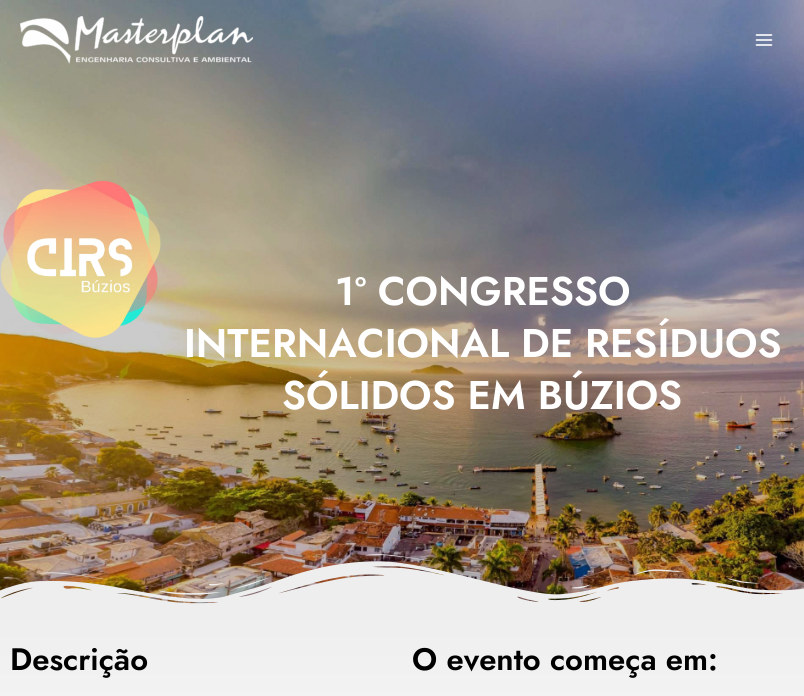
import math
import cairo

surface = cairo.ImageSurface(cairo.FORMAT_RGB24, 804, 696)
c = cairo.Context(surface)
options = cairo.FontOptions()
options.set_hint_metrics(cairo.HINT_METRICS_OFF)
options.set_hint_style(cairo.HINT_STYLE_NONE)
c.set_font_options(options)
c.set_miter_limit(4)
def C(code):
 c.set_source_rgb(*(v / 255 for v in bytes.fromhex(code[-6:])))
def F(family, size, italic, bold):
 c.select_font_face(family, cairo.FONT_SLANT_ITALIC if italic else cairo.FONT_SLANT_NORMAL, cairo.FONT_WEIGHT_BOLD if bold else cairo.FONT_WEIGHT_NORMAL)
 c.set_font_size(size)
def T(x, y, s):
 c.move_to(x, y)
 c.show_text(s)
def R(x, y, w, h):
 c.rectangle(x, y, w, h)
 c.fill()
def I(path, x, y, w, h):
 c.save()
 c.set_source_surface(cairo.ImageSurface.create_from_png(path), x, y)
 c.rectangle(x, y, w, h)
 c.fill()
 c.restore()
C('ffffff')
c.paint()
I('3.png',0,0,804,604)
I('1.png',20,16,233,48)
I('2.png',755,34,18,12)
I('4.png',0,180,161,158)
F('Jost SemiBold',40,0,0)
C('ffffff')
T(335,305,'1º CONGRESSO')
T(184,357,'INTERNACIONAL DE RESÍDUOS')
T(282,409,'SÓLIDOS EM BÚZIOS')
I('5.png',0,554,804,56)
gradient = cairo.LinearGradient(402,610,402,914)
gradient.add_color_stop_rgba(0,0.933,0.933,0.933,1)
gradient.add_color_stop_rgba(1,1,1,1,1)
c.set_source(gradient)
R(0,610,804,86)
F('Jost SemiBold',31,0,0)
C('000000')
T(10,670,'Descrição')
T(412,670,'O evento começa em:')
surface.write_to_png('o.png')
